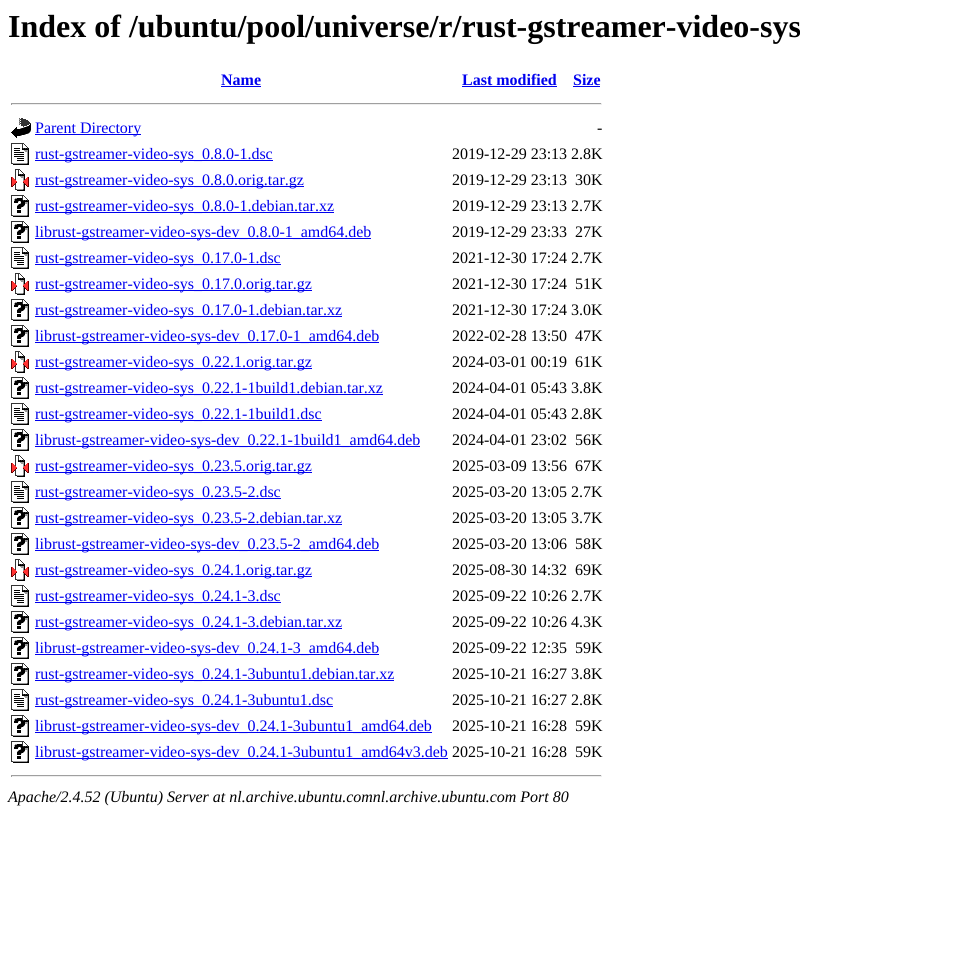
import math
import cairo

surface = cairo.ImageSurface(cairo.FORMAT_RGB24, 980, 980)
c = cairo.Context(surface)
options = cairo.FontOptions()
options.set_hint_metrics(cairo.HINT_METRICS_OFF)
options.set_hint_style(cairo.HINT_STYLE_NONE)
c.set_font_options(options)
c.set_miter_limit(4)
def C(code):
 c.set_source_rgb(*(v / 255 for v in bytes.fromhex(code[-6:])))
def F(family, size, italic, bold):
 c.select_font_face(family, cairo.FONT_SLANT_ITALIC if italic else cairo.FONT_SLANT_NORMAL, cairo.FONT_WEIGHT_BOLD if bold else cairo.FONT_WEIGHT_NORMAL)
 c.set_font_size(size)
def T(x, y, s):
 c.move_to(x, y)
 c.show_text(s)
def R(x, y, w, h):
 c.rectangle(x, y, w, h)
 c.fill()
def I(path, x, y, w, h):
 c.save()
 c.set_source_surface(cairo.ImageSurface.create_from_png(path), x, y)
 c.rectangle(x, y, w, h)
 c.fill()
 c.restore()
C('ffffff')
c.paint()
F('Liberation Serif',32,0,1)
C('000000')
T(8,37,'Index of /ubuntu/pool/universe/r/rust-gstreamer-video-sys')
F('Liberation Serif',16,0,1)
C('0000ee')
T(221,85,'Name')
R(221,86,40,1)
T(462,85,'Last modified')
R(462,86,95,1)
T(573,85,'Size')
R(573,86,27,1)
C('9f9f9f')
R(11,103,591,1)
C('eeeeee')
R(601,103,1,2)
R(11,104,591,1)
C('9f9f9f')
R(11,103,1,2)
I('1.png',11,118,20,20)
C('0000ee')
R(35,134,106,1)
F('Liberation Serif',16,0,0)
T(35,133,'Parent Directory')
C('000000')
T(597,133,'-')
I('2.png',11,143,18,22)
C('0000ee')
R(35,160,238,1)
T(35,159,'rust-gstreamer-video-sys_0.8.0-1.dsc')
C('000000')
T(452,159,'2019-12-29 23:13 2.8K')
I('3.png',11,169,18,22)
C('0000ee')
R(35,186,269,1)
T(35,185,'rust-gstreamer-video-sys_0.8.0.orig.tar.gz')
C('000000')
T(452,185,'2019-12-29 23:13')
T(575,185,'30K')
I('4.png',11,195,18,22)
C('0000ee')
R(35,212,299,1)
T(35,211,'rust-gstreamer-video-sys_0.8.0-1.debian.tar.xz')
C('000000')
T(452,211,'2019-12-29 23:13 2.7K')
I('4.png',11,221,18,22)
C('0000ee')
R(35,238,336,1)
T(35,237,'librust-gstreamer-video-sys-dev_0.8.0-1_amd64.deb')
C('000000')
T(452,237,'2019-12-29 23:33')
T(575,237,'27K')
I('2.png',11,247,18,22)
C('0000ee')
R(35,264,246,1)
T(35,263,'rust-gstreamer-video-sys_0.17.0-1.dsc')
C('000000')
T(452,263,'2021-12-30 17:24 2.7K')
I('3.png',11,273,18,22)
C('0000ee')
R(35,290,277,1)
T(35,289,'rust-gstreamer-video-sys_0.17.0.orig.tar.gz')
C('000000')
T(452,289,'2021-12-30 17:24')
T(575,289,'51K')
I('4.png',11,299,18,22)
C('0000ee')
R(35,316,307,1)
T(35,315,'rust-gstreamer-video-sys_0.17.0-1.debian.tar.xz')
C('000000')
T(452,315,'2021-12-30 17:24 3.0K')
I('4.png',11,325,18,22)
C('0000ee')
R(35,342,344,1)
T(35,341,'librust-gstreamer-video-sys-dev_0.17.0-1_amd64.deb')
C('000000')
T(452,341,'2022-02-28 13:50')
T(575,341,'47K')
I('3.png',11,351,18,22)
C('0000ee')
R(35,368,277,1)
T(35,367,'rust-gstreamer-video-sys_0.22.1.orig.tar.gz')
C('000000')
T(452,367,'2024-03-01 00:19')
T(575,367,'61K')
I('4.png',11,377,18,22)
C('0000ee')
R(35,394,348,1)
T(35,393,'rust-gstreamer-video-sys_0.22.1-1build1.debian.tar.xz')
C('000000')
T(452,393,'2024-04-01 05:43 3.8K')
I('2.png',11,403,18,22)
C('0000ee')
R(35,420,287,1)
T(35,419,'rust-gstreamer-video-sys_0.22.1-1build1.dsc')
C('000000')
T(452,419,'2024-04-01 05:43 2.8K')
I('4.png',11,429,18,22)
C('0000ee')
R(35,446,385,1)
T(35,445,'librust-gstreamer-video-sys-dev_0.22.1-1build1_amd64.deb')
C('000000')
T(452,445,'2024-04-01 23:02')
T(575,445,'56K')
I('3.png',11,455,18,22)
C('0000ee')
R(35,472,277,1)
T(35,471,'rust-gstreamer-video-sys_0.23.5.orig.tar.gz')
C('000000')
T(452,471,'2025-03-09 13:56')
T(575,471,'67K')
I('2.png',11,481,18,22)
C('0000ee')
R(35,498,246,1)
T(35,497,'rust-gstreamer-video-sys_0.23.5-2.dsc')
C('000000')
T(452,497,'2025-03-20 13:05 2.7K')
I('4.png',11,507,18,22)
C('0000ee')
R(35,524,307,1)
T(35,523,'rust-gstreamer-video-sys_0.23.5-2.debian.tar.xz')
C('000000')
T(452,523,'2025-03-20 13:05 3.7K')
I('4.png',11,533,18,22)
C('0000ee')
R(35,550,344,1)
T(35,549,'librust-gstreamer-video-sys-dev_0.23.5-2_amd64.deb')
C('000000')
T(452,549,'2025-03-20 13:06')
T(575,549,'58K')
I('3.png',11,559,18,22)
C('0000ee')
R(35,576,277,1)
T(35,575,'rust-gstreamer-video-sys_0.24.1.orig.tar.gz')
C('000000')
T(452,575,'2025-08-30 14:32')
T(575,575,'69K')
I('2.png',11,585,18,22)
C('0000ee')
R(35,602,246,1)
T(35,601,'rust-gstreamer-video-sys_0.24.1-3.dsc')
C('000000')
T(452,601,'2025-09-22 10:26 2.7K')
I('4.png',11,611,18,22)
C('0000ee')
R(35,628,307,1)
T(35,627,'rust-gstreamer-video-sys_0.24.1-3.debian.tar.xz')
C('000000')
T(452,627,'2025-09-22 10:26 4.3K')
I('4.png',11,637,18,22)
C('0000ee')
R(35,654,344,1)
T(35,653,'librust-gstreamer-video-sys-dev_0.24.1-3_amd64.deb')
C('000000')
T(452,653,'2025-09-22 12:35')
T(575,653,'59K')
I('4.png',11,663,18,22)
C('0000ee')
R(35,680,359,1)
T(35,679,'rust-gstreamer-video-sys_0.24.1-3ubuntu1.debian.tar.xz')
C('000000')
T(452,679,'2025-10-21 16:27 3.8K')
I('2.png',11,689,18,22)
C('0000ee')
R(35,706,298,1)
T(35,705,'rust-gstreamer-video-sys_0.24.1-3ubuntu1.dsc')
C('000000')
T(452,705,'2025-10-21 16:27 2.8K')
I('4.png',11,715,18,22)
C('0000ee')
R(35,732,397,1)
T(35,731,'librust-gstreamer-video-sys-dev_0.24.1-3ubuntu1_amd64.deb')
C('000000')
T(452,731,'2025-10-21 16:28')
T(575,731,'59K')
I('4.png',11,741,18,22)
C('0000ee')
R(35,758,413,1)
T(35,757,'librust-gstreamer-video-sys-dev_0.24.1-3ubuntu1_amd64v3.deb')
C('000000')
T(452,757,'2025-10-21 16:28')
T(575,757,'59K')
C('9f9f9f')
R(11,775,591,1)
C('eeeeee')
R(601,775,1,2)
R(11,776,591,1)
C('9f9f9f')
R(11,775,1,2)
F('Liberation Serif',16,1,0)
C('000000')
T(8,802,'Apache/2.4.52 (Ubuntu) Server at nl.archive.ubuntu.comnl.archive.ubuntu.com Port 80')
surface.write_to_png('o.png')
